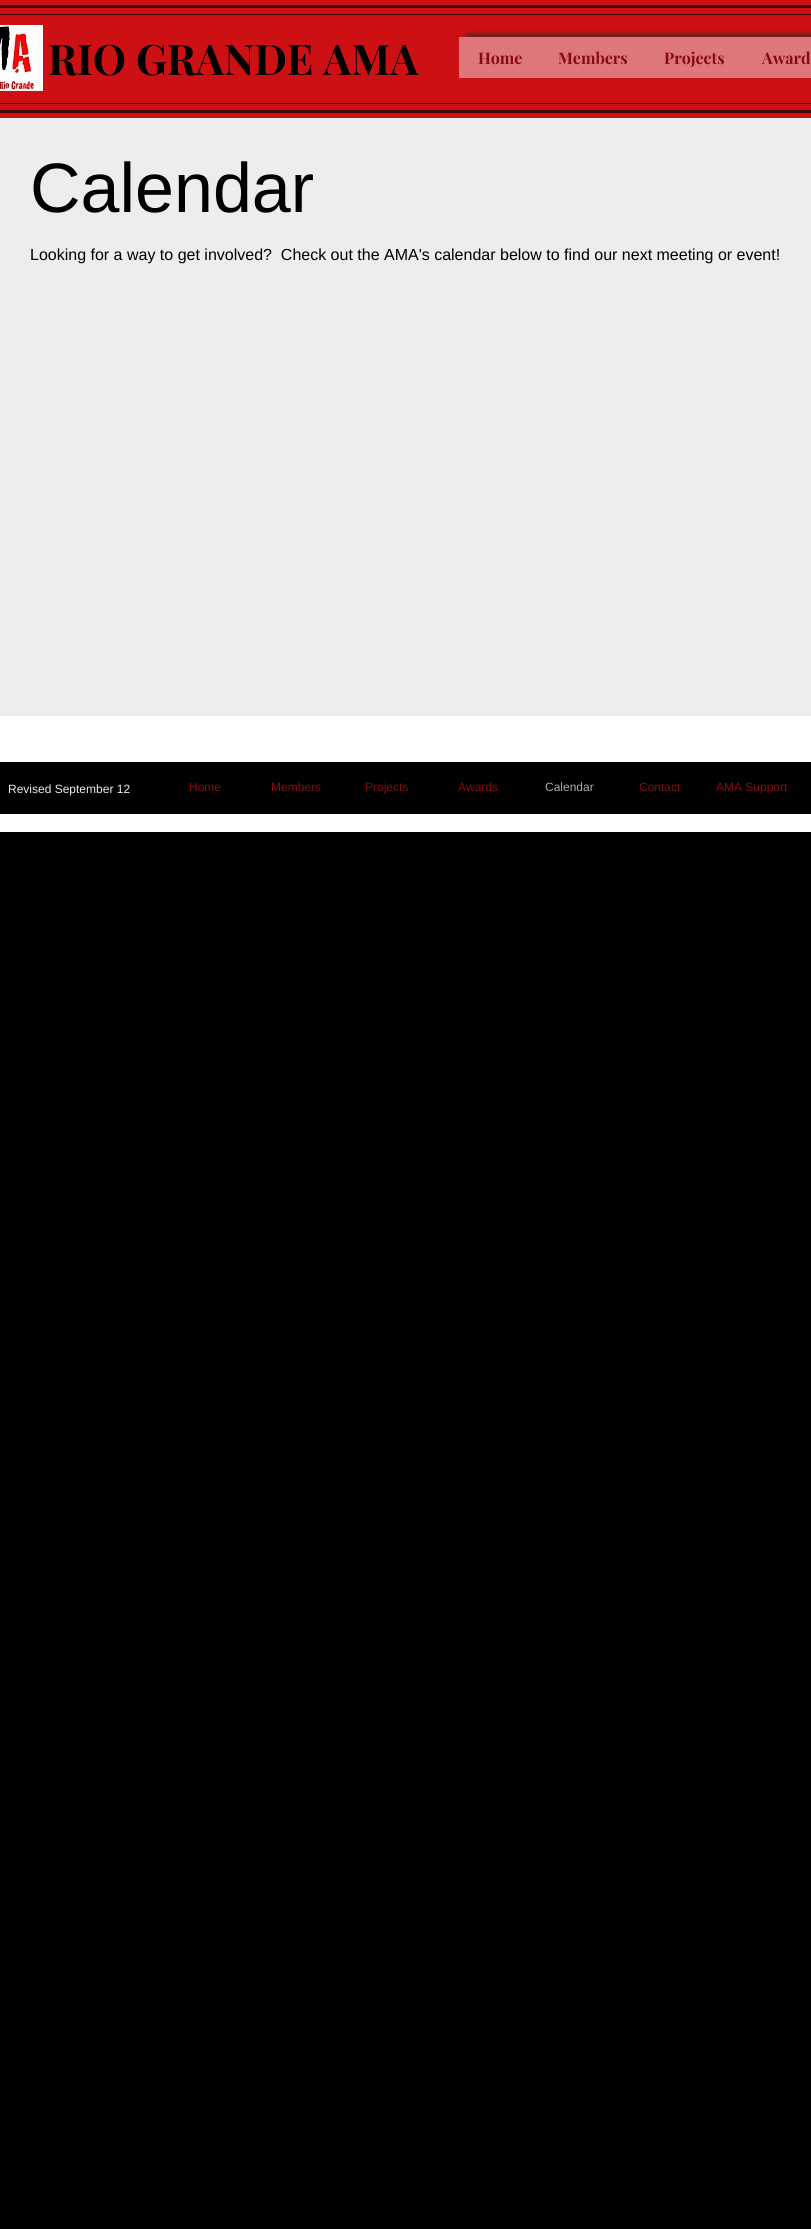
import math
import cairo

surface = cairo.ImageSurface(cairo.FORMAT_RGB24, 811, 2229)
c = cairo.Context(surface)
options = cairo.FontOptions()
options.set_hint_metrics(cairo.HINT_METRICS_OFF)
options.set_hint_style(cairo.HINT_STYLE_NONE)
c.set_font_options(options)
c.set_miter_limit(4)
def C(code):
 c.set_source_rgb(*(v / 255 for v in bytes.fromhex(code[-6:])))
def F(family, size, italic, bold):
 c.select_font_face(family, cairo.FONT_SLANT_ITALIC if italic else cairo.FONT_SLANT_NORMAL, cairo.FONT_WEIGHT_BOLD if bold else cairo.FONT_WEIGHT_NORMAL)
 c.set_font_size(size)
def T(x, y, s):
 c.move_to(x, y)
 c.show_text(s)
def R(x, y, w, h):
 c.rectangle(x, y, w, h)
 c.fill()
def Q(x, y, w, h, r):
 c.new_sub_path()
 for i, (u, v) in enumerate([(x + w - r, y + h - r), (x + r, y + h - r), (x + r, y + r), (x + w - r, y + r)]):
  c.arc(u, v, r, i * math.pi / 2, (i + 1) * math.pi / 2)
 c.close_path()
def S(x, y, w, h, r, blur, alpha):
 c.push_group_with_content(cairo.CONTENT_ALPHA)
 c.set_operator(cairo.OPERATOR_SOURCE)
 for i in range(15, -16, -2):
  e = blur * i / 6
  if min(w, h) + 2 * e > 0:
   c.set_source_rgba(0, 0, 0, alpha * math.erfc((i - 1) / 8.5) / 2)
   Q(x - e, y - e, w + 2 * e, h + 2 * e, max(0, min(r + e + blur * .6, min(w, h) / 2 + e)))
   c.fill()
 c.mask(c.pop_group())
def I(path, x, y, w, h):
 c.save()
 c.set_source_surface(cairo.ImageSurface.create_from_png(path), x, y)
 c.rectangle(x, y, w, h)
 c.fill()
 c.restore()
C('000000')
c.paint()
C('cc1013')
R(0,0,811,118)
C('440506')
R(0,5,811,3)
R(0,110,811,3)
R(0,14,811,1)
R(0,103,811,1)
I('1.png',0,25,43,66)
F('Playfair Display',42,0,1)
C('000000')
T(48,75,'RIO GRANDE AMA')
C('2b2b2b')
S(466,33,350,41,0,1.5,.55)
C('dd7779')
R(459,37,352,41)
F('Playfair Display',16,0,1)
C('880a0c')
T(478,64,'Home')
T(558,64,'Members')
T(664,64,'Projects')
T(762,64,'Award')
C('ededed')
R(0,118,811,598)
F('Liberation Sans',70,0,0)
C('000000')
T(30,212,'Calendar')
F('Liberation Sans',16,0,0)
T(30,260,'Looking for a way to get involved?  Check out the AMA\'s calendar below to find our next meeting or event!')
C('ffffff')
R(0,716,811,116)
C('000000')
R(0,762,811,52)
F('Liberation Sans',12,0,0)
C('ededed')
T(8,793,'Revised September 12')
C('880a0c')
T(189,791,'Home')
T(271,791,'Members')
T(365,791,'Projects')
T(458,791,'Awards')
C('ababab')
T(545,791,'Calendar')
C('880a0c')
T(639,791,'Contact')
T(716,791,'AMA Support')
surface.write_to_png('o.png')
